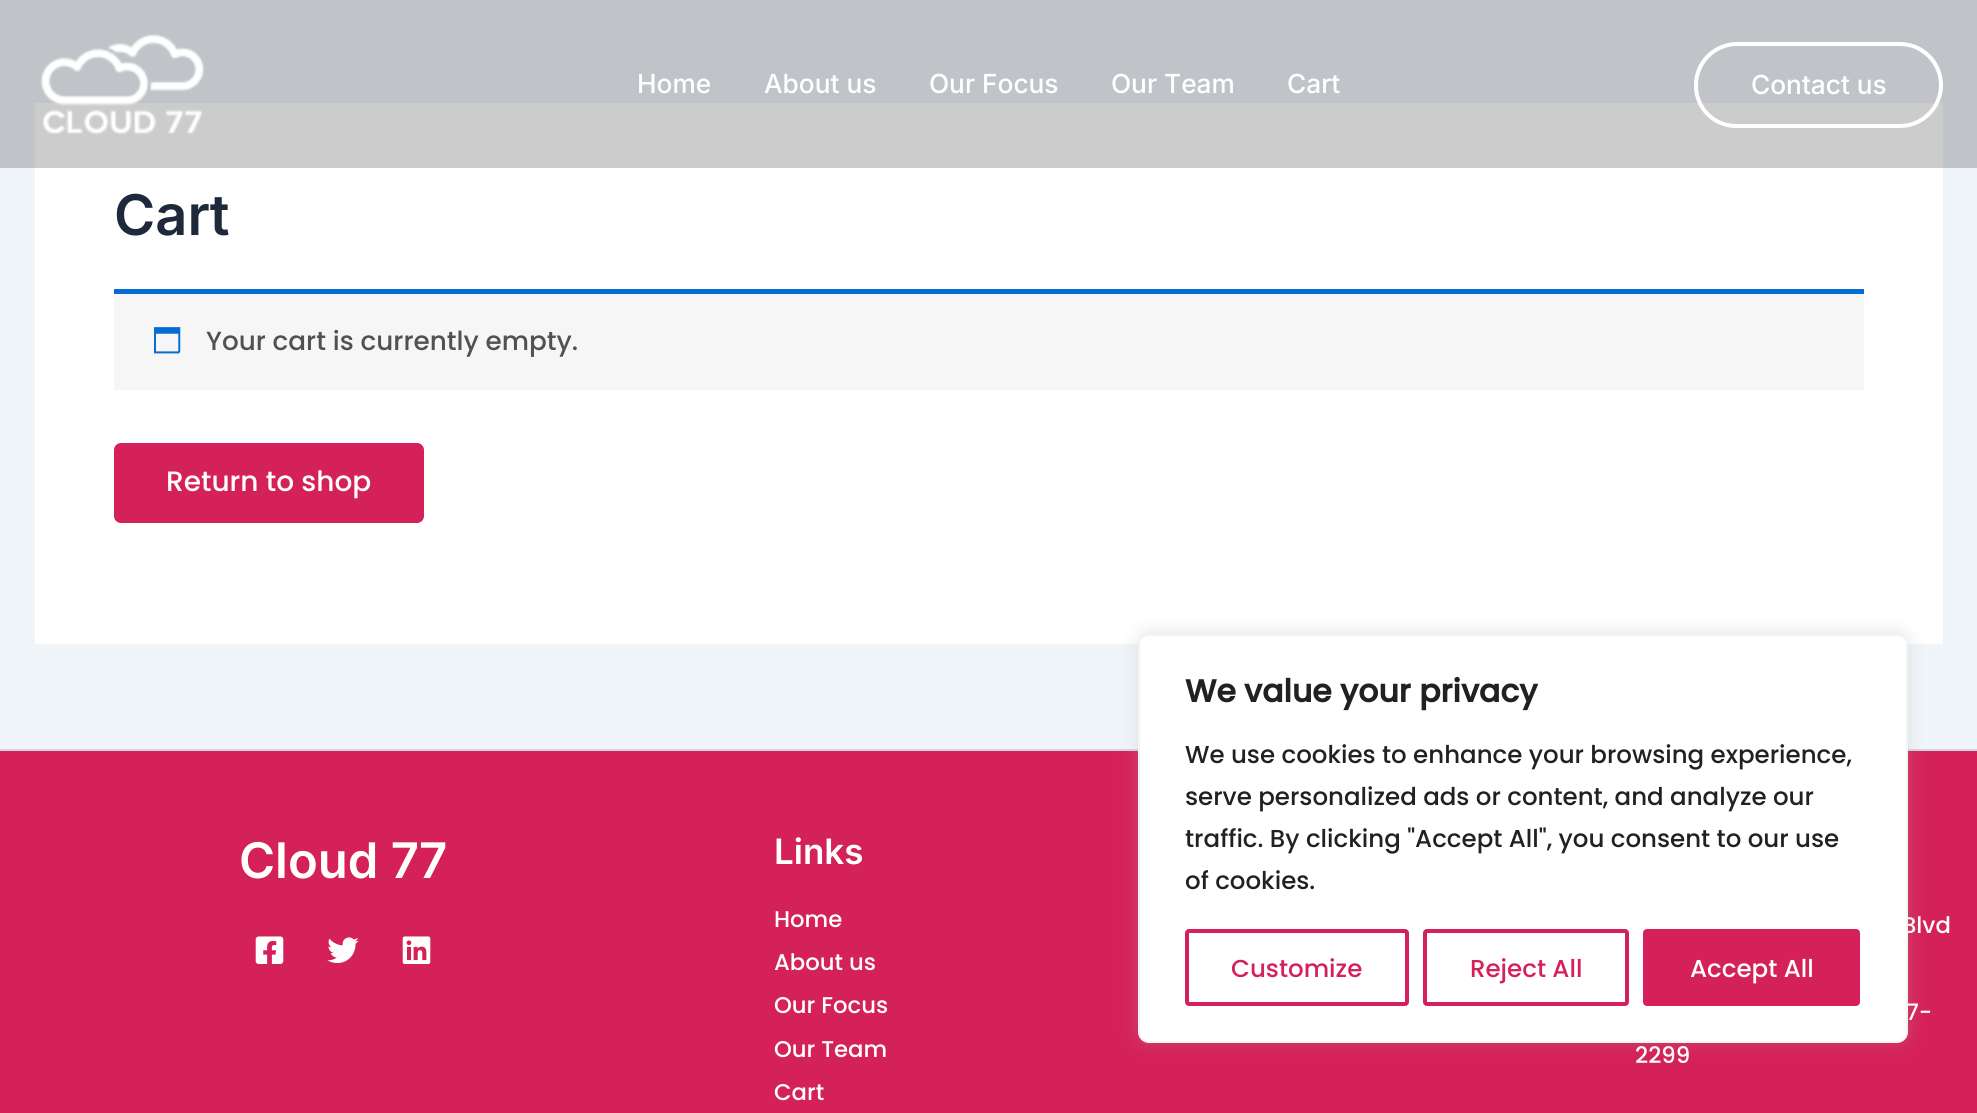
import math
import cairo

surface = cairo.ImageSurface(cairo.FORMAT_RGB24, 1977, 1113)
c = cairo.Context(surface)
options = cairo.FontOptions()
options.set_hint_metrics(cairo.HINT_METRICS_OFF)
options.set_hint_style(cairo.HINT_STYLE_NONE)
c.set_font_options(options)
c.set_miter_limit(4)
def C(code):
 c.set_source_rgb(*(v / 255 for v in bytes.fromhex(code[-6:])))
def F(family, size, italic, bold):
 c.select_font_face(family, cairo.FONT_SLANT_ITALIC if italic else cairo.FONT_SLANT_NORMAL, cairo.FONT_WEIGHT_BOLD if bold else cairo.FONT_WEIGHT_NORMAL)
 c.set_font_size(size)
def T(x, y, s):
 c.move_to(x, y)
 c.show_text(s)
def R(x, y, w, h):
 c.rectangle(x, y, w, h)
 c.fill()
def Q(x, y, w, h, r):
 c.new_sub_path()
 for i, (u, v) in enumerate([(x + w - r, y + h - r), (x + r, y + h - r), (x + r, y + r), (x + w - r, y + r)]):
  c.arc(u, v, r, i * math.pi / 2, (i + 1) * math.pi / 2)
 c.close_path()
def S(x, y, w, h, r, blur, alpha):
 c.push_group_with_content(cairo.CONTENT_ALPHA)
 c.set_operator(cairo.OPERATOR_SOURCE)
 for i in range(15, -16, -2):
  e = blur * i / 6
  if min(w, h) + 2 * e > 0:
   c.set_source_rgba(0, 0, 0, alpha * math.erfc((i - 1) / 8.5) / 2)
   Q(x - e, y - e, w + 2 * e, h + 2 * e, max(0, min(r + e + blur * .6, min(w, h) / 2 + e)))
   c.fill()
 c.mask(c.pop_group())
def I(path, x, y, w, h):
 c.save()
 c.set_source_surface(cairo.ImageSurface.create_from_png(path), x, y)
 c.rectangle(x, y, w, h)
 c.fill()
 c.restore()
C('f0f5fa')
c.paint()
C('c0c4c8')
R(0,0,1977,168)
C('cccccc')
R(35,103,1908,65)
I('1.png',40,34,164,101)
F('Inter Medium',26.25,0,0)
C('ffffff')
T(637,93,'Home')
T(764,93,'About us')
T(929,93,'Our Focus')
T(1111,93,'Our Team')
T(1287,93,'Cart')
c.new_path()
c.move_to(1737,44)
c.line_to(1900,44)
c.curve_to(1922.5,44,1941,62.5,1941,85)
c.curve_to(1941,107.5,1922.5,126,1900,126)
c.line_to(1736,126)
c.curve_to(1714,126,1696,108,1696,86)
c.line_to(1696,85)
c.curve_to(1696,62.5,1714.5,44,1737,44)
c.close_path()
c.set_line_width(4)
c.stroke()
T(1751,94,'Contact us')
R(35,168,1908,476)
F('Inter SemiBold',56,0,0)
C('1e293b')
T(114,235,'Cart')
C('f7f6f7')
R(114,294,1750,96)
C('046bd2')
R(114,289,1750,5)
I('2.png',154,327,27,27)
F('Poppins Medium',26.25,0,0)
C('515151')
T(206,350,'Your cart is currently empty.')
C('d52159')
Q(114,443,310,80,7)
c.fill()
F('Poppins Medium',28,0,0)
C('ffffff')
T(166,491,'Return to shop')
C('d52159')
R(0,751,1977,362)
C('d1d5db')
R(0,749,1977,2)
F('Inter SemiBold',49,0,0)
C('ffffff')
T(239,878,'Cloud 77')
I('3.png',255,936,29,28)
I('4.png',327,937,32,26)
I('5.png',402,936,29,28)
F('Inter SemiBold',35,0,0)
T(774,864,'Links')
F('Poppins Medium',22.75,0,0)
T(774,927,'Home')
T(774,970,'About us')
T(774,1013,'Our Focus')
T(774,1057,'Our Team')
T(774,1100,'Cart')
T(1902,933,'Blvd')
T(1906,1020,'7-')
T(1635,1063,'2299')
C('acabab')
S(1138,632,770,409,11,9,.3)
C('ffffff')
Q(1139,635,768,407,10)
c.fill_preserve()
C('f4f4f4')
c.set_line_width(2)
c.stroke()
F('Poppins',31.5,0,1)
C('212121')
T(1185,702,'We value your privacy')
F('Poppins Medium',24.5,0,0)
T(1185,763,'We use cookies to enhance your browsing experience,')
T(1185,805,'serve personalized ads or content, and analyze our')
T(1185,847,'traffic. By clicking "Accept All", you consent to our use')
T(1185,889,'of cookies.')
Q(1187,931,220,73,2)
C('d52159')
c.set_line_width(4)
c.stroke()
T(1231,977,'Customize')
Q(1425,931,202,73,2)
c.stroke()
T(1470,977,'Reject All')
Q(1645,931,213,73,2)
c.fill_preserve()
c.stroke()
C('ffffff')
T(1690,977,'Accept All')
surface.write_to_png('o.png')
